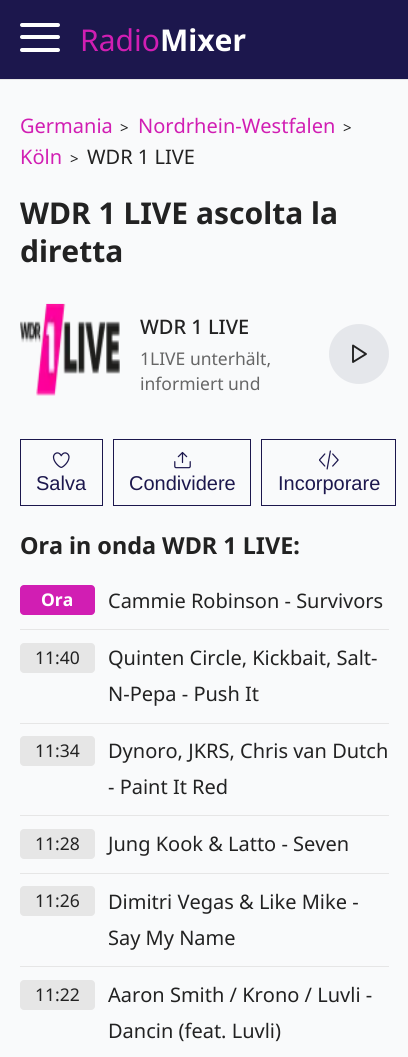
import math
import cairo

surface = cairo.ImageSurface(cairo.FORMAT_RGB24, 408, 1057)
c = cairo.Context(surface)
options = cairo.FontOptions()
options.set_hint_metrics(cairo.HINT_METRICS_OFF)
options.set_hint_style(cairo.HINT_STYLE_NONE)
c.set_font_options(options)
c.set_miter_limit(4)
def C(code):
 c.set_source_rgb(*(v / 255 for v in bytes.fromhex(code[-6:])))
def F(family, size, italic, bold):
 c.select_font_face(family, cairo.FONT_SLANT_ITALIC if italic else cairo.FONT_SLANT_NORMAL, cairo.FONT_WEIGHT_BOLD if bold else cairo.FONT_WEIGHT_NORMAL)
 c.set_font_size(size)
def T(x, y, s):
 c.move_to(x, y)
 c.show_text(s)
def R(x, y, w, h):
 c.rectangle(x, y, w, h)
 c.fill()
def Q(x, y, w, h, r):
 c.new_sub_path()
 for i, (u, v) in enumerate([(x + w - r, y + h - r), (x + r, y + h - r), (x + r, y + r), (x + w - r, y + r)]):
  c.arc(u, v, r, i * math.pi / 2, (i + 1) * math.pi / 2)
 c.close_path()
def I(path, x, y, w, h):
 c.save()
 c.set_source_surface(cairo.ImageSurface.create_from_png(path), x, y)
 c.rectangle(x, y, w, h)
 c.fill()
 c.restore()
C('f9fafb')
c.paint()
C('1c174d')
R(0,0,408,79)
C('e6e6e6')
R(0,79,408,1)
C('ffffff')
Q(20,35,40,4,2)
c.fill()
Q(20,23,40,4,2)
c.fill()
Q(20,48,40,4,2)
c.fill()
F('Noto Sans',30,0,0)
C('d11eb3')
T(80,51,'Radio')
F('Noto Sans',30,0,1)
C('ffffff')
T(160,51,'Mixer')
F('Noto Sans',20,0,0)
C('d11eb3')
T(20,133,'Germania')
F('Noto Sans',15,0,0)
C('222222')
T(120,133,'>')
F('Noto Sans',20,0,0)
C('d11eb3')
T(138,133,'Nordrhein-Westfalen')
F('Noto Sans',15,0,0)
C('222222')
T(343,133,'>')
F('Noto Sans',20,0,0)
C('d11eb3')
T(20,164,'Köln')
F('Noto Sans',15,0,0)
C('222222')
T(70,164,'>')
F('Noto Sans',20,0,0)
T(87,164,'WDR 1 LIVE')
F('Noto Sans',30,0,1)
T(20,224,'WDR 1 LIVE ascolta la')
T(20,262,'diretta')
I('1.png',20,303,100,93)
F('Noto Sans Medium',20,0,0)
T(140,334,'WDR 1 LIVE')
F('Noto Sans',17.5,0,0)
C('666666')
T(140,365,'1LIVE unterhält,')
T(140,390,'informiert und')
C('e5e7eb')
c.new_path()
c.arc(359,354,30,0,2 * math.pi)
c.fill()
c.new_path()
c.move_to(353,345.5)
c.line_to(366,354)
c.line_to(353,362)
c.close_path()
C('222222')
c.set_line_width(1.9)
c.set_line_cap(cairo.LINE_CAP_ROUND)
c.set_line_join(cairo.LINE_JOIN_ROUND)
c.stroke()
c.rectangle(20.5,439.5,82,66)
C('1c174d')
c.set_line_width(1)
c.set_line_cap(cairo.LINE_CAP_BUTT)
c.set_line_join(cairo.LINE_JOIN_MITER)
c.stroke()
I('2.png',52,452,18,16)
F('Liberation Sans',20,0,0)
T(36,490,'Salva')
c.rectangle(113.5,439.5,137,66)
c.stroke()
I('3.png',174,451,17,18)
T(129,490,'Condividere')
c.rectangle(261.5,439.5,134,66)
c.stroke()
I('4.png',319,450,20,20)
T(278,490,'Incorporare')
F('Noto Sans',23.4,0,1)
C('222222')
T(20,554,'Ora in onda WDR 1 LIVE:')
C('e6e6e6')
R(20,629,369,1)
C('d11eb3')
Q(20,585,75,30,4)
c.fill()
F('Noto Sans',17.5,0,1)
C('ffffff')
T(41,606,'Ora')
F('Noto Sans',20,0,0)
C('222222')
T(108,608,'Cammie Robinson - Survivors')
C('e6e6e6')
R(20,723,369,1)
Q(20,643,75,30,4)
c.fill()
F('Noto Sans',17.5,0,0)
C('222222')
T(35,664,'11:40')
F('Noto Sans',20,0,0)
T(108,665,'Quinten Circle, Kickbait, Salt-')
T(108,701,'N-Pepa - Push It')
C('e6e6e6')
R(20,815,369,1)
Q(20,736,75,30,4)
c.fill()
F('Noto Sans',17.5,0,0)
C('222222')
T(35,757,'11:34')
F('Noto Sans',20,0,0)
T(108,758,'Dynoro, JKRS, Chris van Dutch')
T(108,794,'- Paint It Red')
C('e6e6e6')
R(20,873,369,1)
Q(20,829,75,30,4)
c.fill()
F('Noto Sans',17.5,0,0)
C('222222')
T(35,850,'11:28')
F('Noto Sans',20,0,0)
T(108,851,'Jung Kook & Latto - Seven')
C('e6e6e6')
R(20,966,369,1)
Q(20,886,75,30,4)
c.fill()
F('Noto Sans',17.5,0,0)
C('222222')
T(35,907,'11:26')
F('Noto Sans',20,0,0)
T(108,909,'Dimitri Vegas & Like Mike -')
T(108,945,'Say My Name')
C('e6e6e6')
Q(20,980,75,30,4)
c.fill()
F('Noto Sans',17.5,0,0)
C('222222')
T(35,1001,'11:22')
F('Noto Sans',20,0,0)
T(108,1002,'Aaron Smith / Krono / Luvli -')
T(108,1038,'Dancin (feat. Luvli)')
surface.write_to_png('o.png')
